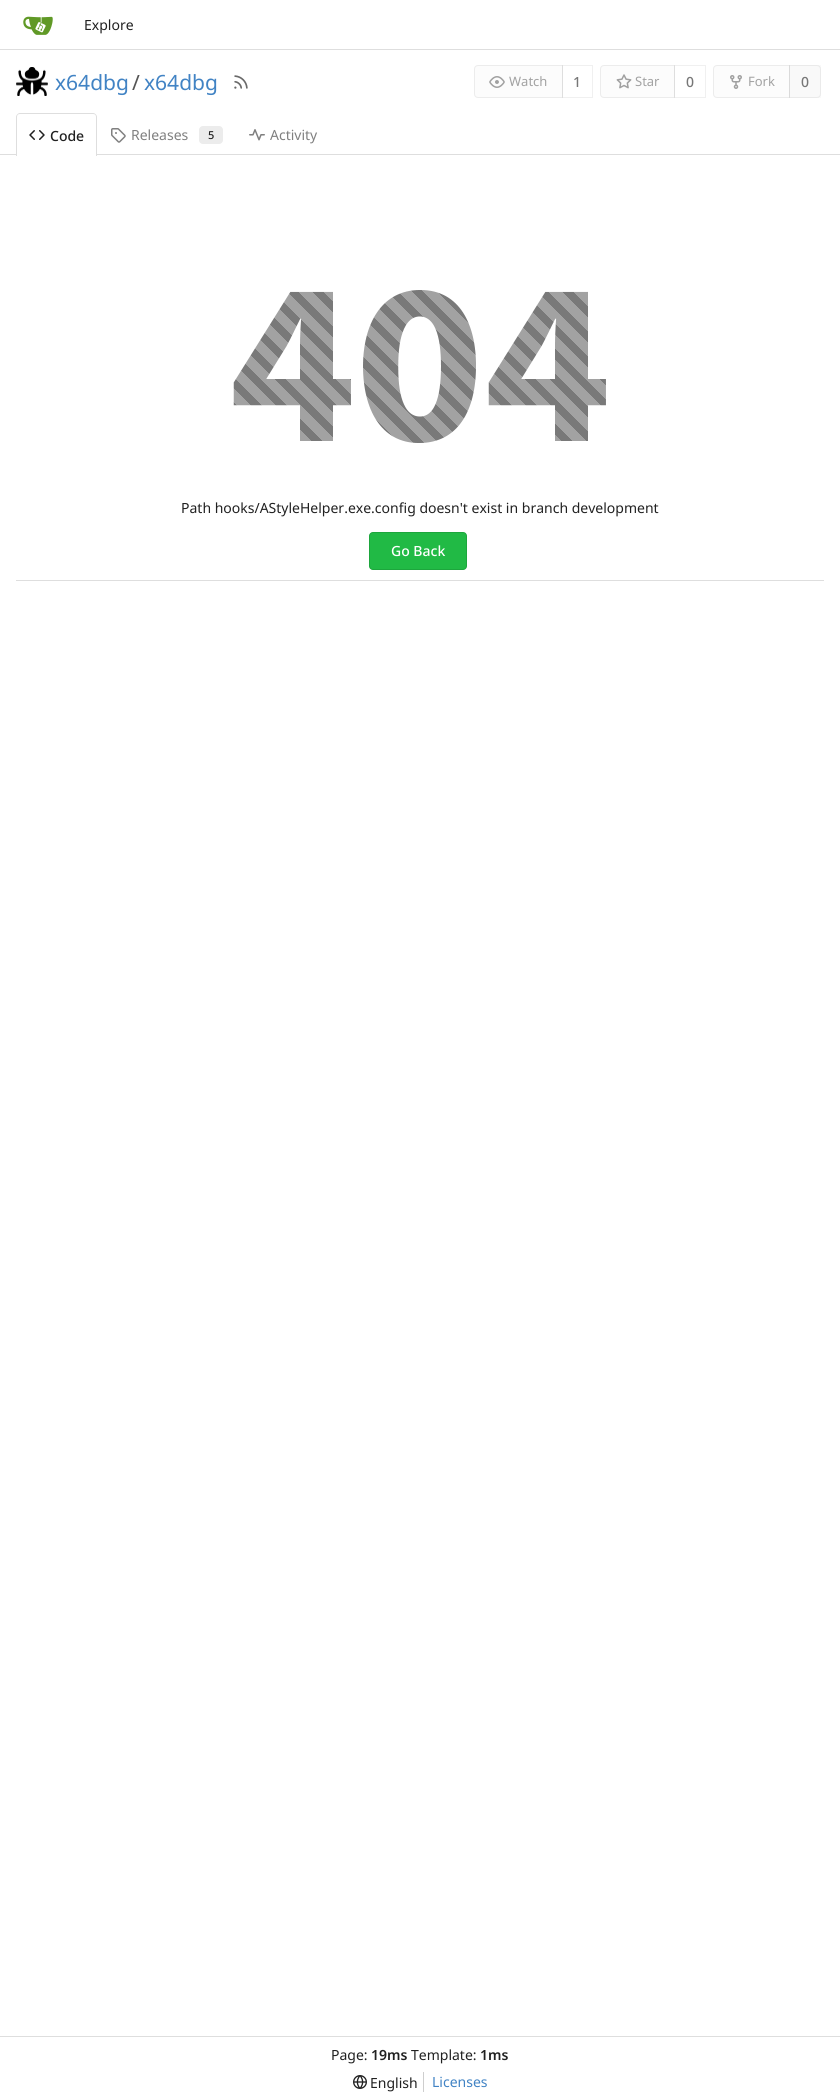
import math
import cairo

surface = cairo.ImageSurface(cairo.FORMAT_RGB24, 840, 2100)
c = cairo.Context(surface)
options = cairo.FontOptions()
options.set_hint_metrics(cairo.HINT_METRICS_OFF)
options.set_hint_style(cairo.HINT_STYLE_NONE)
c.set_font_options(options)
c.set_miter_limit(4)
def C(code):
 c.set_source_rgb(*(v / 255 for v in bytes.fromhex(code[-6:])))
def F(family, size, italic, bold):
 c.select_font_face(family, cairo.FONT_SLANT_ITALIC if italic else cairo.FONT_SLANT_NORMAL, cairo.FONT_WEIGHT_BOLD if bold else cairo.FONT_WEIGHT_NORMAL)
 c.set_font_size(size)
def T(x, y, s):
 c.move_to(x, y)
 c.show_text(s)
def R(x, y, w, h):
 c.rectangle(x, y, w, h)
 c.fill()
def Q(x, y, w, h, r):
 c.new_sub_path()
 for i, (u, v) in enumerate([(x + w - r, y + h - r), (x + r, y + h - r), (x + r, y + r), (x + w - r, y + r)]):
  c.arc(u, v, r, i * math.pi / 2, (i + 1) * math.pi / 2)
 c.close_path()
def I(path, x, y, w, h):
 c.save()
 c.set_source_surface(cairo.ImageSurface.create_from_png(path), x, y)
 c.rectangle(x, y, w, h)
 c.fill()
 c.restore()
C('ffffff')
c.paint()
C('dedede')
R(0,49,840,1)
I('1.png',23,16,30,19)
F('Noto Sans',14,0,0)
C('212121')
T(84,30,'Explore')
I('2.png',16,67,32,29)
F('Noto Sans',21,0,0)
C('4183c4')
T(55,90,'x64dbg')
C('555555')
T(132,90,'/')
C('4183c4')
T(144,90,'x64dbg')
I('3.png',234,75,14,14)
C('fcfcfc')
c.new_path()
c.move_to(478,65.5)
c.line_to(562.5,65.5)
c.line_to(562.5,97.5)
c.line_to(478,97.5)
c.curve_to(476,97.5,474.5,96,474.5,94)
c.line_to(474.5,69)
c.curve_to(474.5,67,476,65.5,478,65.5)
c.close_path()
c.fill_preserve()
C('ececec')
c.set_line_width(1)
c.stroke()
I('4.png',489,76,16,12)
F('Noto Sans',13,0,0)
C('a2a2a2')
T(509,86,'Watch')
c.rectangle(562.5,65.5,30,32)
c.set_source_rgba(0,0,0,0.06)
c.stroke()
F('Noto Sans Medium',14,0,0)
C('777777')
T(573,87,'1')
C('fcfcfc')
c.new_path()
c.move_to(604,65.5)
c.line_to(674.5,65.5)
c.line_to(674.5,97.5)
c.line_to(604,97.5)
c.curve_to(602,97.5,600.5,96,600.5,94)
c.line_to(600.5,69)
c.curve_to(600.5,67,602,65.5,604,65.5)
c.close_path()
c.fill_preserve()
C('ececec')
c.stroke()
I('5.png',616,74,16,15)
F('Noto Sans',13,0,0)
C('a2a2a2')
T(635,86,'Star')
c.rectangle(674.5,65.5,31,32)
c.set_source_rgba(0,0,0,0.06)
c.stroke()
F('Noto Sans Medium',14,0,0)
C('777777')
T(686,87,'0')
C('fcfcfc')
c.new_path()
c.move_to(717,65.5)
c.line_to(789.5,65.5)
c.line_to(789.5,97.5)
c.line_to(717,97.5)
c.curve_to(715,97.5,713.5,96,713.5,94)
c.line_to(713.5,69)
c.curve_to(713.5,67,715,65.5,717,65.5)
c.close_path()
c.fill_preserve()
C('ececec')
c.stroke()
I('6.png',730,75,12,14)
F('Noto Sans',13,0,0)
C('a2a2a2')
T(748,86,'Fork')
c.set_source_rgba(0.451,0.451,0.451,0.04)
R(789,65,32,33)
c.new_path()
c.move_to(789.5,65.5)
c.line_to(817,65.5)
c.curve_to(819,65.5,820.5,67,820.5,69)
c.line_to(820.5,94)
c.curve_to(820.5,96,819,97.5,817,97.5)
c.line_to(789.5,97.5)
c.close_path()
c.set_source_rgba(0.451,0.451,0.451,0.11)
c.stroke()
F('Noto Sans Medium',14,0,0)
C('777777')
T(801,87,'0')
C('dedede')
R(0,154,840,1)
C('ffffff')
c.new_path()
c.move_to(20,113)
c.line_to(93,113)
c.curve_to(95,113,97,115,97,117)
c.line_to(97,155)
c.line_to(16,155)
c.line_to(16,117)
c.curve_to(16,115,18,113,20,113)
c.close_path()
c.fill()
C('dedede')
c.set_fill_rule(cairo.FILL_RULE_EVEN_ODD)
c.new_path()
c.move_to(20,113)
c.line_to(93,113)
c.curve_to(95,113,97,115,97,117)
c.line_to(97,156)
c.line_to(16,156)
c.line_to(16,117)
c.curve_to(16,115,18,113,20,113)
c.close_path()
c.move_to(20,114)
c.line_to(93,114)
c.curve_to(95,114,96,115,96,117)
c.line_to(96,156)
c.line_to(17,156)
c.line_to(17,117)
c.curve_to(17,115,18,114,20,114)
c.close_path()
c.fill()
I('7.png',29,130,16,10)
C('212121')
T(50,141,'Code')
I('8.png',111,128,15,15)
F('Noto Sans',14,0,0)
C('808080')
T(131,140,'Releases')
C('ececec')
Q(199,126,24,18,4)
c.fill()
F('Noto Sans Medium',11,0,0)
C('212121')
T(208,139,'5')
I('9.png',249,129,16,12)
F('Noto Sans',14,0,0)
C('808080')
T(270,140,'Activity')
I('10.png',233,290,373,153)
C('212121')
T(181,513,'Path hooks/AStyleHelper.exe.config doesn\'t exist in branch development')
C('21ba45')
Q(369,532,98,38,4)
c.fill()
Q(369.5,532.5,97,37,3.5)
c.set_source_rgba(0,0,0,0.11)
c.stroke()
F('Noto Sans Medium',14,0,0)
C('ffffff')
T(391,556,'Go Back')
C('dedede')
R(16,580,808,1)
R(0,2036,840,1)
F('Noto Sans',14,0,0)
C('212121')
T(331,2060,'Page:')
F('Noto Sans SemiBold',14,0,0)
T(371,2060,'19ms')
F('Noto Sans',14,0,0)
T(411,2060,'Template:')
F('Noto Sans SemiBold',14,0,0)
T(480,2060,'1ms')
I('11.png',353,2075,14,14)
F('Noto Sans',14,0,0)
T(370,2088,'English')
C('cecece')
R(423,2072,1,20)
C('4183c4')
T(432,2087,'Licenses')
surface.write_to_png('o.png')
